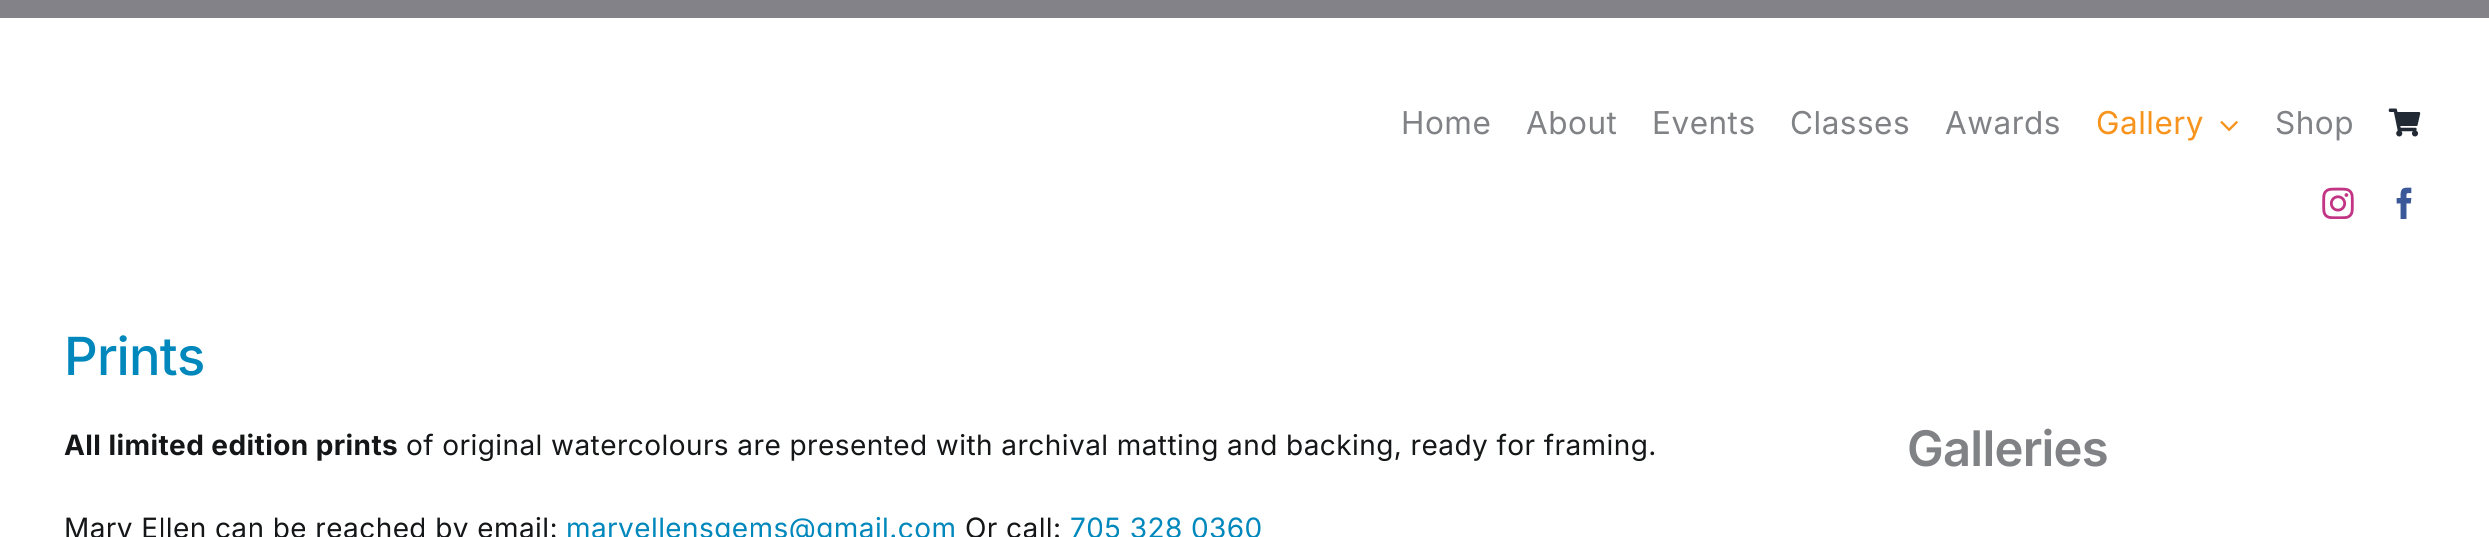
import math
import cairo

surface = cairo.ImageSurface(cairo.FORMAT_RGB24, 2489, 537)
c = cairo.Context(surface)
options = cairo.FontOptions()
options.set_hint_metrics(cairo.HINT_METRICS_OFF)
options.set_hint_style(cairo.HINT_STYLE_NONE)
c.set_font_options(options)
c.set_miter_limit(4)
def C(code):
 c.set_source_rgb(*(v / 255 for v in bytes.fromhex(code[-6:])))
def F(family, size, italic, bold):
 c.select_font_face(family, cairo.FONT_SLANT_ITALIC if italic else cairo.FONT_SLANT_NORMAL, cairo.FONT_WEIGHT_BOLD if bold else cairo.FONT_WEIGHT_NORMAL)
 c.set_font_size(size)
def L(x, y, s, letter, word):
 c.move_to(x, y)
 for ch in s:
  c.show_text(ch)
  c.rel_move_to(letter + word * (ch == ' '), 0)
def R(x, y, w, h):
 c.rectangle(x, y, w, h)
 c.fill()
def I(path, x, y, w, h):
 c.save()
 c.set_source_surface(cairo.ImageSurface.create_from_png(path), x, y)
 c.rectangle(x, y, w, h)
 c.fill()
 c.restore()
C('848289')
c.paint()
C('ffffff')
R(0,18,2489,519)
F('Inter',31.5,0,0)
C('808285')
L(1401,134,'Home',.5,0)
L(1526,134,'About',.5,0)
L(1652,134,'Events',.5,0)
L(1790,134,'Classes',.5,0)
L(1945,134,'Awards',.5,0)
C('f7941e')
L(2096,134,'Gallery',.5,0)
I('1.png',2220,121,18,11)
C('808285')
L(2275,134,'Shop',.5,0)
I('2.png',2388,108,33,29)
I('3.png',2322,187,32,32)
I('4.png',2396,187,16,32)
F('Inter Medium',52.5,0,0)
C('0087bc')
L(64,375,'Prints',-.75,0)
F('Inter',28,0,1)
C('141617')
L(64,455,'All limited edition prints',.42,0)
F('Inter',28,0,0)
L(406,455,'of original watercolours are presented with archival matting and backing, ready for framing.',.42,0)
L(64,538,'Mary Ellen can be reached by email:',.42,0)
C('0087bc')
L(566,538,'maryellensgems@gmail.com',.42,0)
C('141617')
L(965,538,'Or call:',.42,0)
C('0087bc')
L(1070,538,'705 328 0360',.42,0)
F('Inter SemiBold',49,0,0)
C('808285')
L(1907,466,'Galleries',-.75,0)
surface.write_to_png('o.png')
